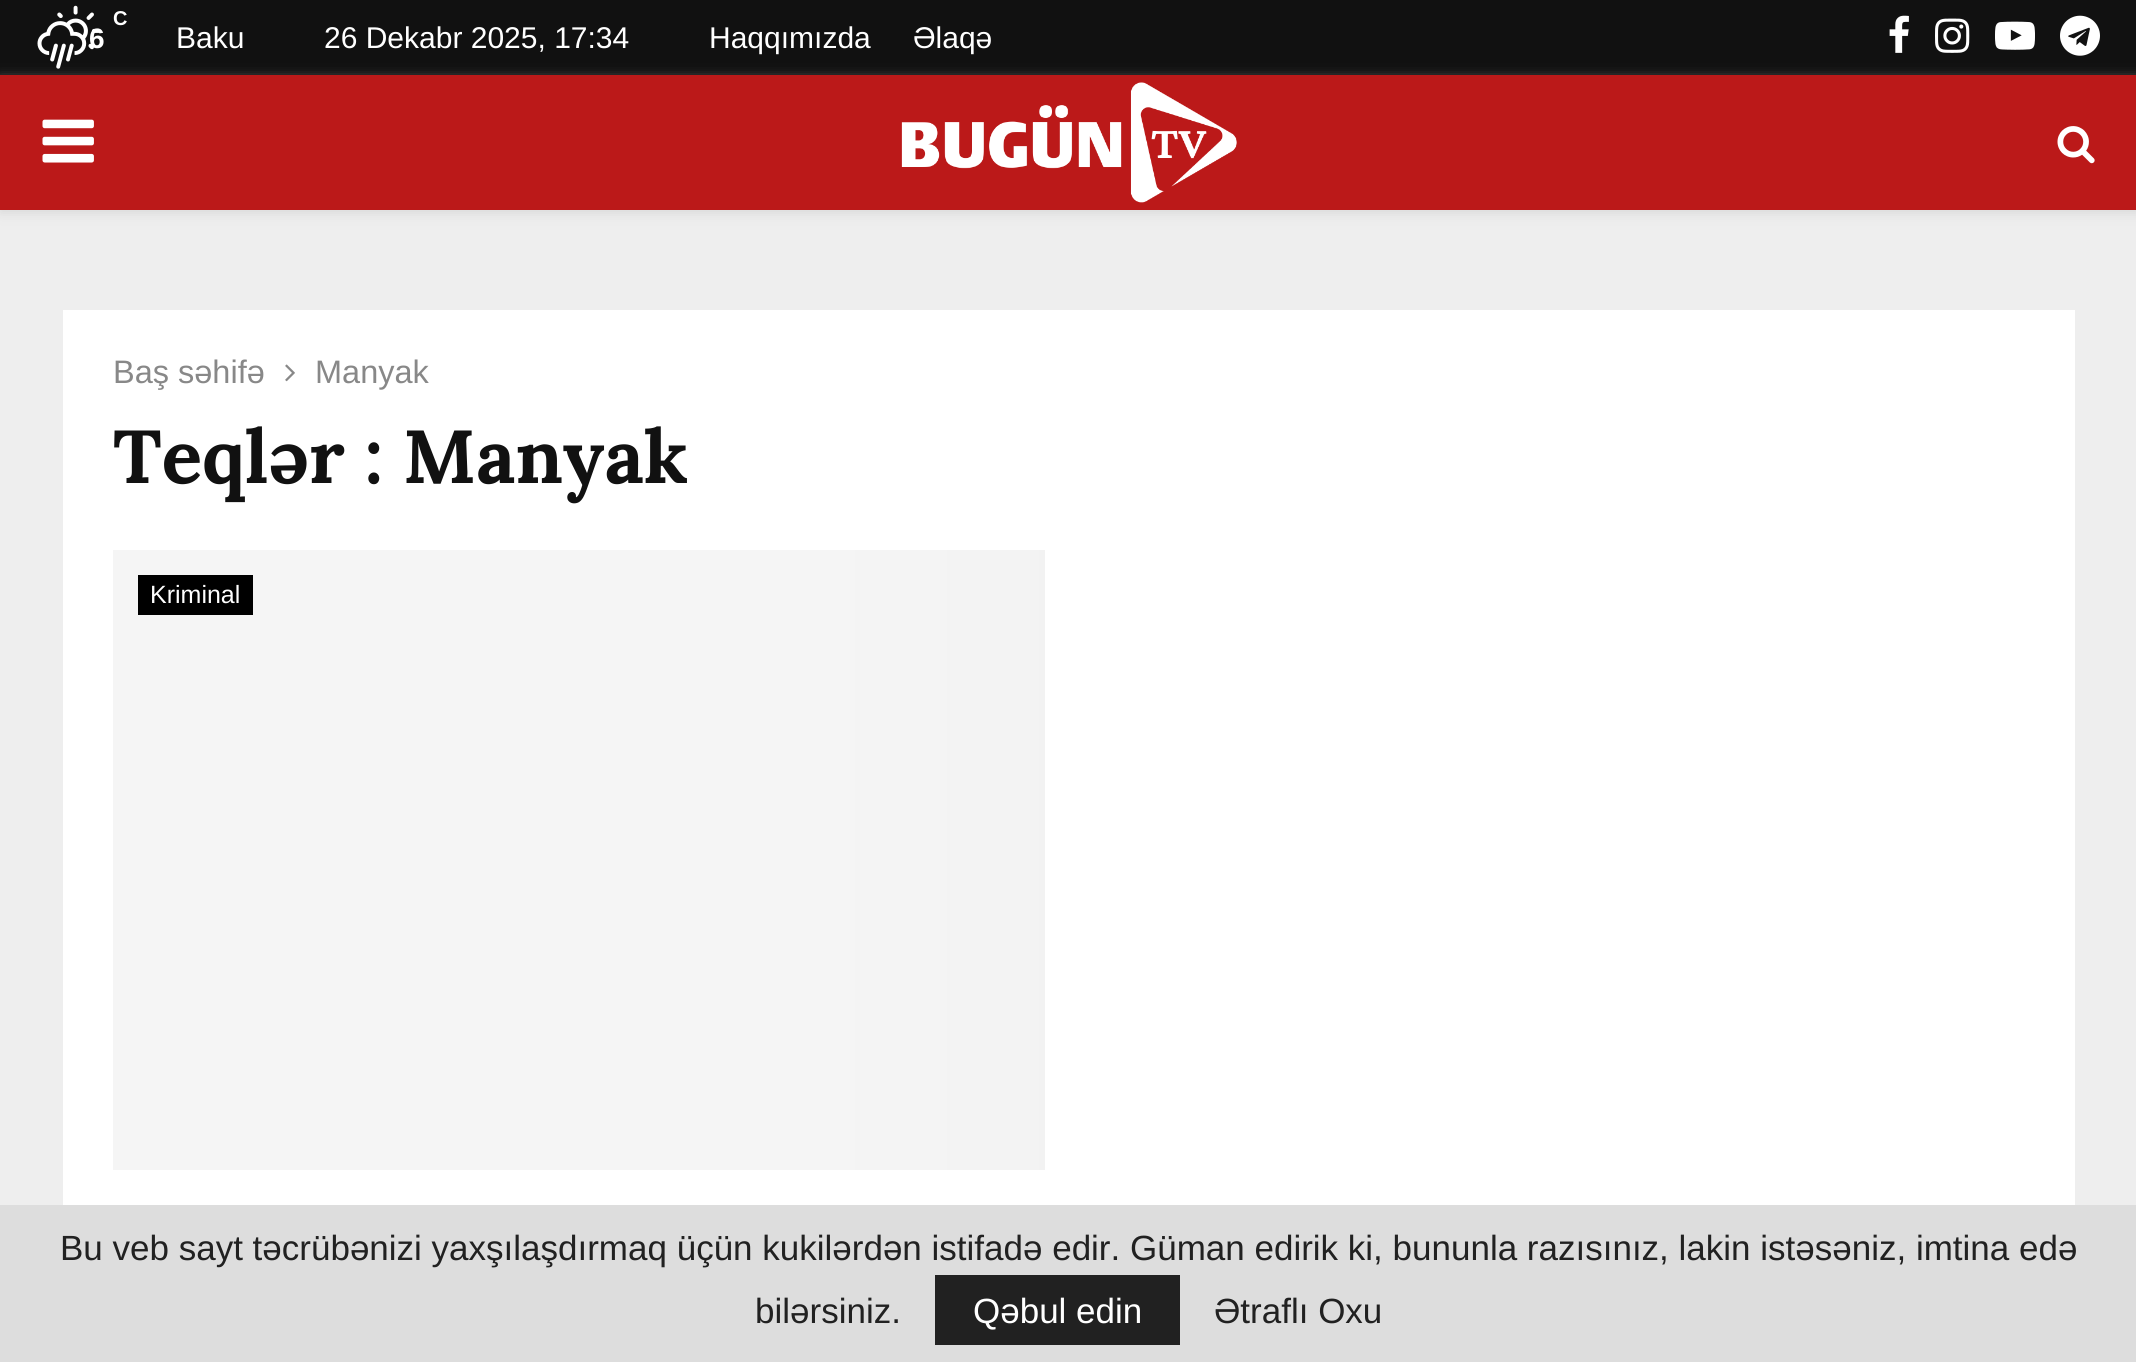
import math
import cairo

surface = cairo.ImageSurface(cairo.FORMAT_RGB24, 2136, 1362)
c = cairo.Context(surface)
options = cairo.FontOptions()
options.set_hint_metrics(cairo.HINT_METRICS_OFF)
options.set_hint_style(cairo.HINT_STYLE_NONE)
c.set_font_options(options)
c.set_miter_limit(4)
def C(code):
 c.set_source_rgb(*(v / 255 for v in bytes.fromhex(code[-6:])))
def F(family, size, italic, bold):
 c.select_font_face(family, cairo.FONT_SLANT_ITALIC if italic else cairo.FONT_SLANT_NORMAL, cairo.FONT_WEIGHT_BOLD if bold else cairo.FONT_WEIGHT_NORMAL)
 c.set_font_size(size)
def T(x, y, s):
 c.move_to(x, y)
 c.show_text(s)
def R(x, y, w, h):
 c.rectangle(x, y, w, h)
 c.fill()
def Q(x, y, w, h, r):
 c.new_sub_path()
 for i, (u, v) in enumerate([(x + w - r, y + h - r), (x + r, y + h - r), (x + r, y + r), (x + w - r, y + r)]):
  c.arc(u, v, r, i * math.pi / 2, (i + 1) * math.pi / 2)
 c.close_path()
def S(x, y, w, h, r, blur, alpha):
 c.push_group_with_content(cairo.CONTENT_ALPHA)
 c.set_operator(cairo.OPERATOR_SOURCE)
 for i in range(15, -16, -2):
  e = blur * i / 6
  if min(w, h) + 2 * e > 0:
   c.set_source_rgba(0, 0, 0, alpha * math.erfc((i - 1) / 8.5) / 2)
   Q(x - e, y - e, w + 2 * e, h + 2 * e, max(0, min(r + e + blur * .6, min(w, h) / 2 + e)))
   c.fill()
 c.mask(c.pop_group())
def I(path, x, y, w, h):
 c.save()
 c.set_source_surface(cairo.ImageSurface.create_from_png(path), x, y)
 c.rectangle(x, y, w, h)
 c.fill()
 c.restore()
C('eeeeee')
c.paint()
C('111111')
R(0,0,2136,75)
I('1.png',37,5,64,64)
F('Liberation Sans',20,0,1)
C('ffffff')
T(113,25,'C')
F('Liberation Sans',28,0,1)
T(89,48,'6')
F('Liberation Sans',30,0,0)
T(176,48,'Baku')
T(324,48,'26 Dekabr 2025, 17:34')
T(709,48,'Haqqımızda')
T(913,48,'Əlaqə')
I('2.png',1889,15,20,38)
I('3.png',1935,18,35,35)
I('4.png',1995,21,40,29)
I('5.png',2060,15,40,41)
C('bebebe')
S(0,78,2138,135,0,6,.46)
C('bb1919')
R(0,75,2136,135)
I('6.png',42,119,52,44)
I('7.png',901,82,336,121)
I('8.png',2057,126,38,38)
C('ffffff')
R(63,310,2012,895)
F('Liberation Sans',32.5,0,0)
C('888888')
T(113,383,'Baş səhifə')
I('9.png',285,364,10,18)
T(315,383,'Manyak')
F('Lora',75,0,1)
C('111111')
T(113,483,'Teqlər : Manyak')
gradient = cairo.LinearGradient(1704,860,-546,860)
gradient.add_color_stop_rgba(0,0.961,0.961,0.961,1)
gradient.add_color_stop_rgba(.15,0.937,0.937,0.937,1)
gradient.add_color_stop_rgba(.4,0.961,0.961,0.961,1)
gradient.add_color_stop_rgba(1,0.961,0.961,0.961,1)
c.set_source(gradient)
R(113,550,932,620)
C('000000')
R(138,575,115,40)
F('Liberation Sans',25,0,0)
C('ffffff')
T(150,603,'Kriminal')
C('dddddd')
R(0,1205,2136,157)
F('Liberation Sans',35,0,0)
C('212121')
T(60,1260,'Bu veb sayt təcrübənizi yaxşılaşdırmaq üçün kukilərdən istifadə edir. Güman edirik ki, bununla razısınız, lakin istəsəniz, imtina edə')
T(755,1323,'bilərsiniz.')
R(935,1275,245,70)
C('ffffff')
T(973,1323,'Qəbul edin')
C('212121')
T(1214,1323,'Ətraflı Oxu')
surface.write_to_png('o.png')
